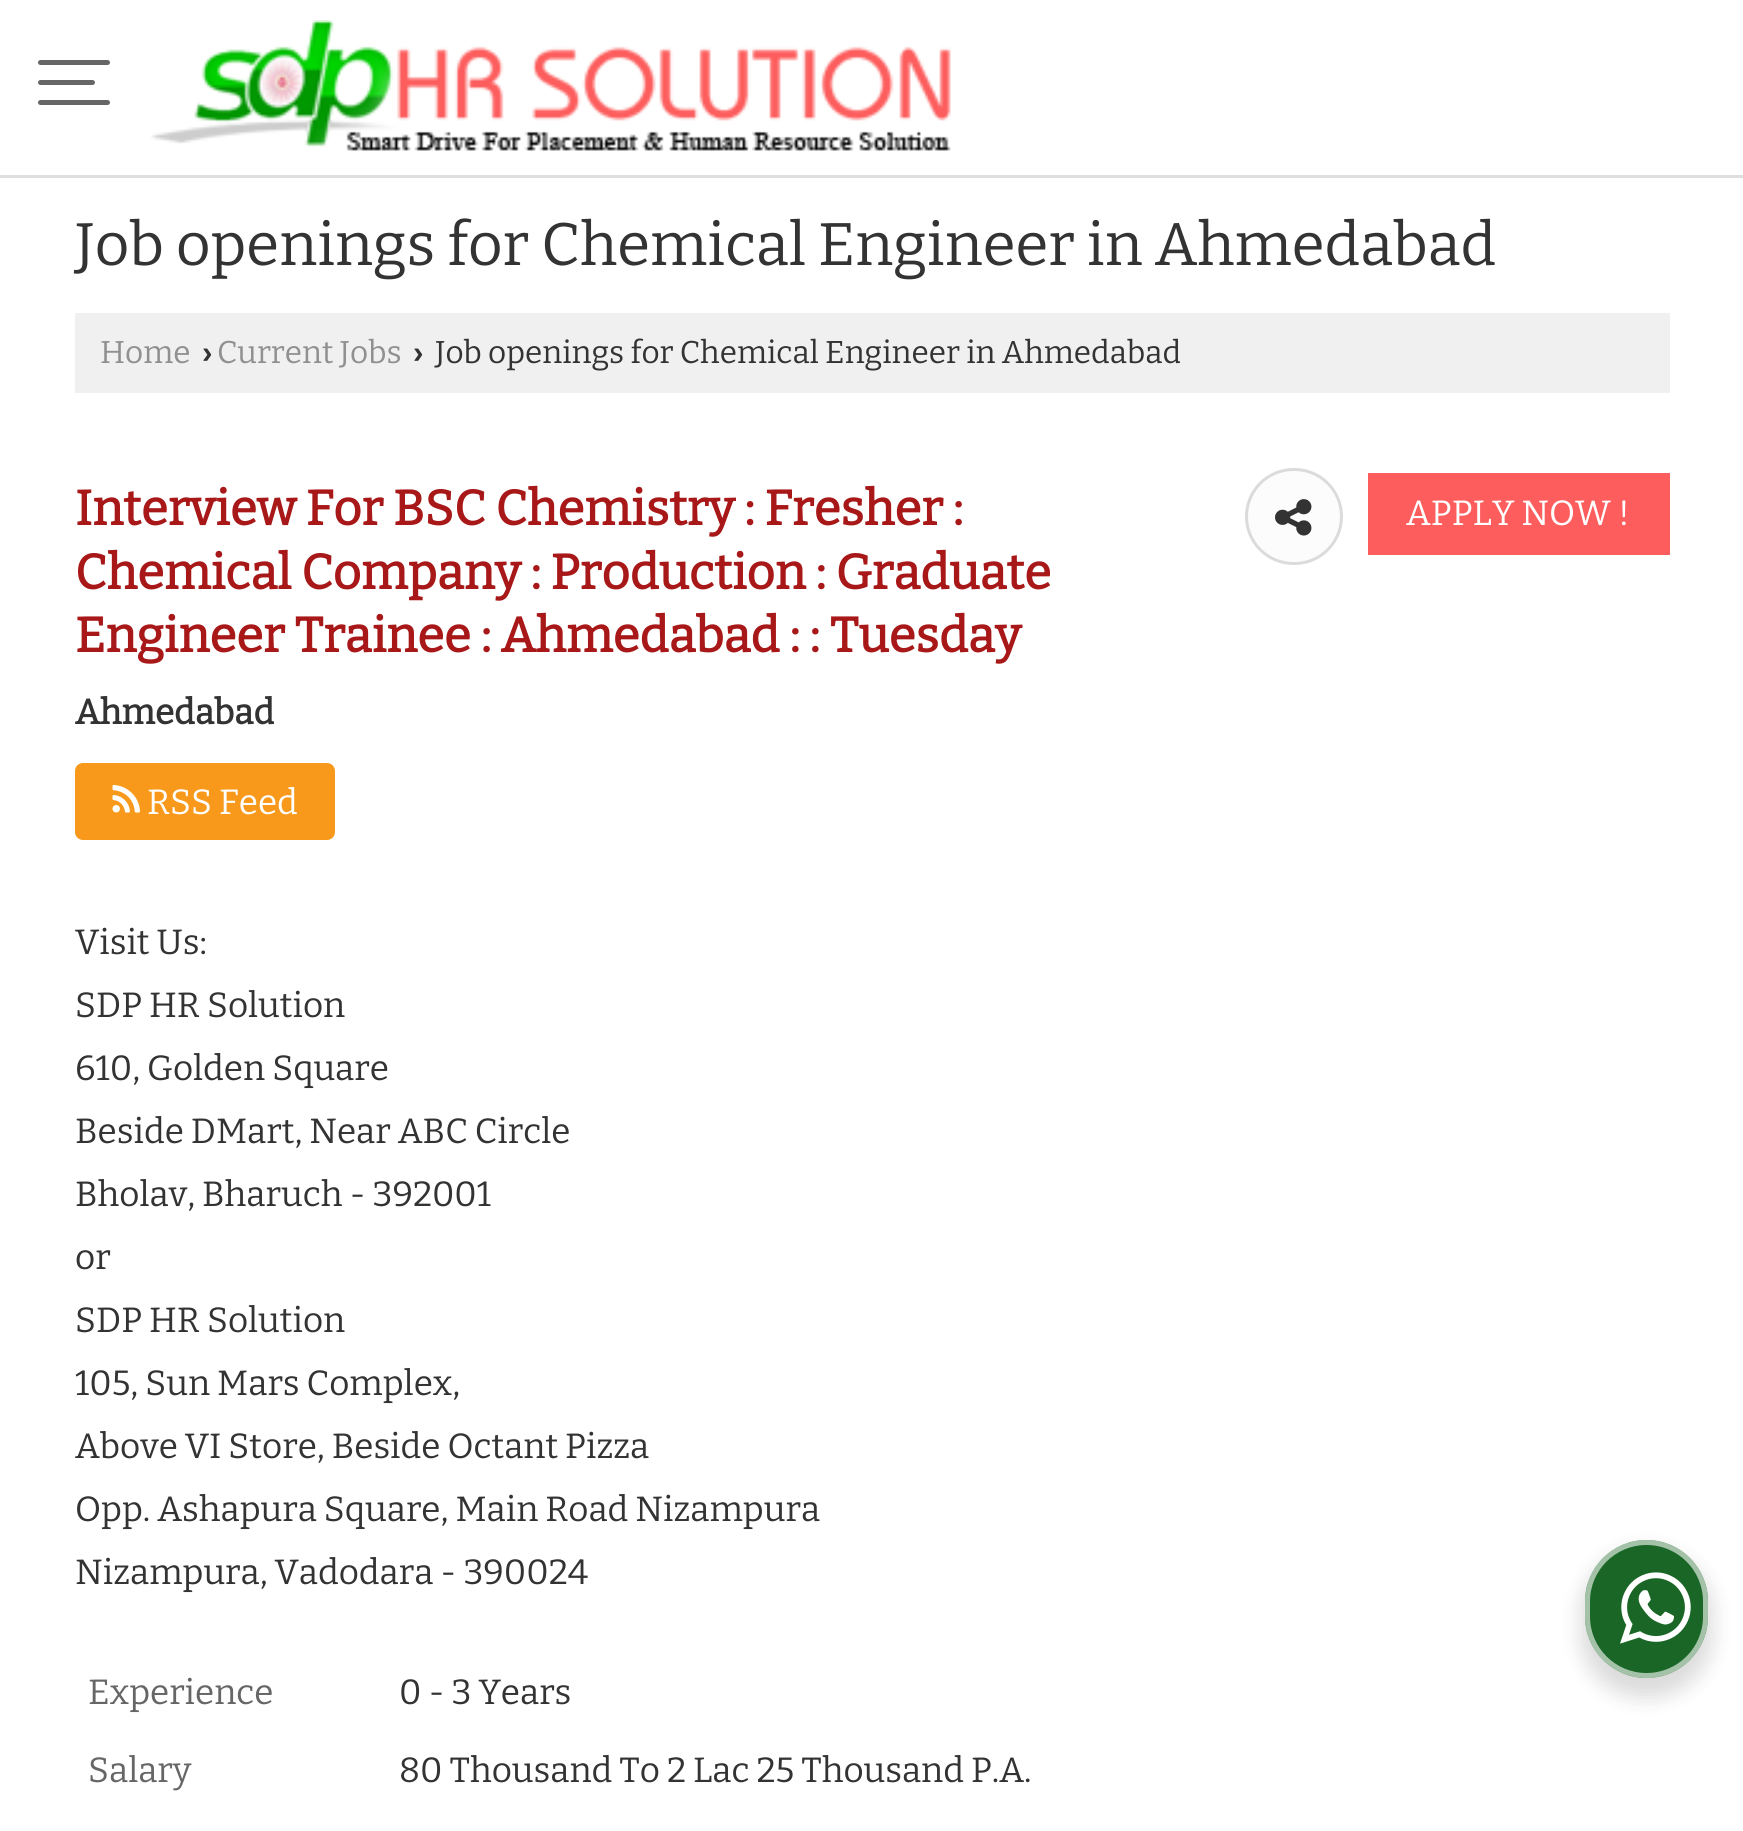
import math
import cairo

surface = cairo.ImageSurface(cairo.FORMAT_RGB24, 1743, 1831)
c = cairo.Context(surface)
options = cairo.FontOptions()
options.set_hint_metrics(cairo.HINT_METRICS_OFF)
options.set_hint_style(cairo.HINT_STYLE_NONE)
c.set_font_options(options)
c.set_miter_limit(4)
def C(code):
 c.set_source_rgb(*(v / 255 for v in bytes.fromhex(code[-6:])))
def F(family, size, italic, bold):
 c.select_font_face(family, cairo.FONT_SLANT_ITALIC if italic else cairo.FONT_SLANT_NORMAL, cairo.FONT_WEIGHT_BOLD if bold else cairo.FONT_WEIGHT_NORMAL)
 c.set_font_size(size)
def T(x, y, s):
 c.move_to(x, y)
 c.show_text(s)
def R(x, y, w, h):
 c.rectangle(x, y, w, h)
 c.fill()
def Q(x, y, w, h, r):
 c.new_sub_path()
 for i, (u, v) in enumerate([(x + w - r, y + h - r), (x + r, y + h - r), (x + r, y + r), (x + w - r, y + r)]):
  c.arc(u, v, r, i * math.pi / 2, (i + 1) * math.pi / 2)
 c.close_path()
def S(x, y, w, h, r, blur, alpha):
 c.push_group_with_content(cairo.CONTENT_ALPHA)
 c.set_operator(cairo.OPERATOR_SOURCE)
 for i in range(15, -16, -2):
  e = blur * i / 6
  if min(w, h) + 2 * e > 0:
   c.set_source_rgba(0, 0, 0, alpha * math.erfc((i - 1) / 8.5) / 2)
   Q(x - e, y - e, w + 2 * e, h + 2 * e, max(0, min(r + e + blur * .6, min(w, h) / 2 + e)))
   c.fill()
 c.mask(c.pop_group())
def I(path, x, y, w, h):
 c.save()
 c.set_source_surface(cairo.ImageSurface.create_from_png(path), x, y)
 c.rectangle(x, y, w, h)
 c.fill()
 c.restore()
C('ffffff')
c.paint()
C('dedede')
R(0,175,1743,3)
C('666666')
Q(38,60,72,5,2.5)
c.fill()
Q(38,80,57,5,2.5)
c.fill()
Q(38,100,72,5,2.5)
c.fill()
I('1.png',150,20,801,131)
F('Bitter Thin',60,0,0)
C('333333')
T(75,265,'Job openings for Chemical Engineer in Ahmedabad')
C('f0f0f0')
R(75,313,1595,80)
F('Bitter Thin',31.5,0,0)
C('909090')
T(100,363,'Home')
F('Liberation Sans',31.5,0,1)
C('333333')
T(202,363,'›')
F('Bitter Thin',31.5,0,0)
C('909090')
T(217,363,'Current Jobs')
F('Liberation Sans',31.5,0,1)
C('333333')
T(413,363,'›')
F('Bitter Thin',31.5,0,0)
T(435,363,'Job openings for Chemical Engineer in Ahmedabad')
F('Bitter',49,0,1)
C('a81818')
T(75,525,'Interview For BSC Chemistry : Fresher :')
T(75,589,'Chemical Company : Production : Graduate')
T(75,652,'Engineer Trainee : Ahmedabad : : Tuesday')
F('Bitter',35,0,1)
C('333333')
T(75,724,'Ahmedabad')
C('fcfcfc')
Q(1246.5,469.5,95,94,47)
c.fill_preserve()
C('dbdbdb')
c.set_line_width(3)
c.stroke()
I('2.png',1275,499,37,37)
C('fd5d5d')
R(1368,473,302,82)
F('Bitter Thin',35,0,0)
C('ffffff')
T(1406,525,'APPLY NOW !')
C('f8991b')
Q(75,763,260,77,8)
c.fill()
I('3.png',112,785,28,28)
C('ffffff')
T(147,814,'RSS Feed')
C('333333')
T(75,954,'Visit Us:')
T(75,1017,'SDP HR Solution')
T(75,1080,'610, Golden Square')
T(75,1143,'Beside DMart, Near ABC Circle')
T(75,1206,'Bholav, Bharuch - 392001')
T(75,1269,'or')
T(75,1332,'SDP HR Solution')
T(75,1395,'105, Sun Mars Complex,')
T(75,1458,'Above VI Store, Beside Octant Pizza')
T(75,1521,'Opp. Ashapura Square, Main Road Nizampura')
T(75,1584,'Nizampura, Vadodara - 390024')
C('666666')
T(88,1704,'Experience')
C('333333')
T(399,1704,'0 - 3 Years')
C('666666')
T(88,1782,'Salary')
C('333333')
T(399,1782,'80 Thousand To 2 Lac 25 Thousand P.A.')
C('000000')
S(1580,1550,133,148,66.5,10,.14)
C('196626')
Q(1585,1540,123,138,61.5)
c.fill()
Q(1587.5,1542.5,118,133,59)
c.set_source_rgba(1,1,1,0.6)
c.set_line_width(5)
c.stroke()
I('4.png',1620,1572,71,72)
surface.write_to_png('o.png')
